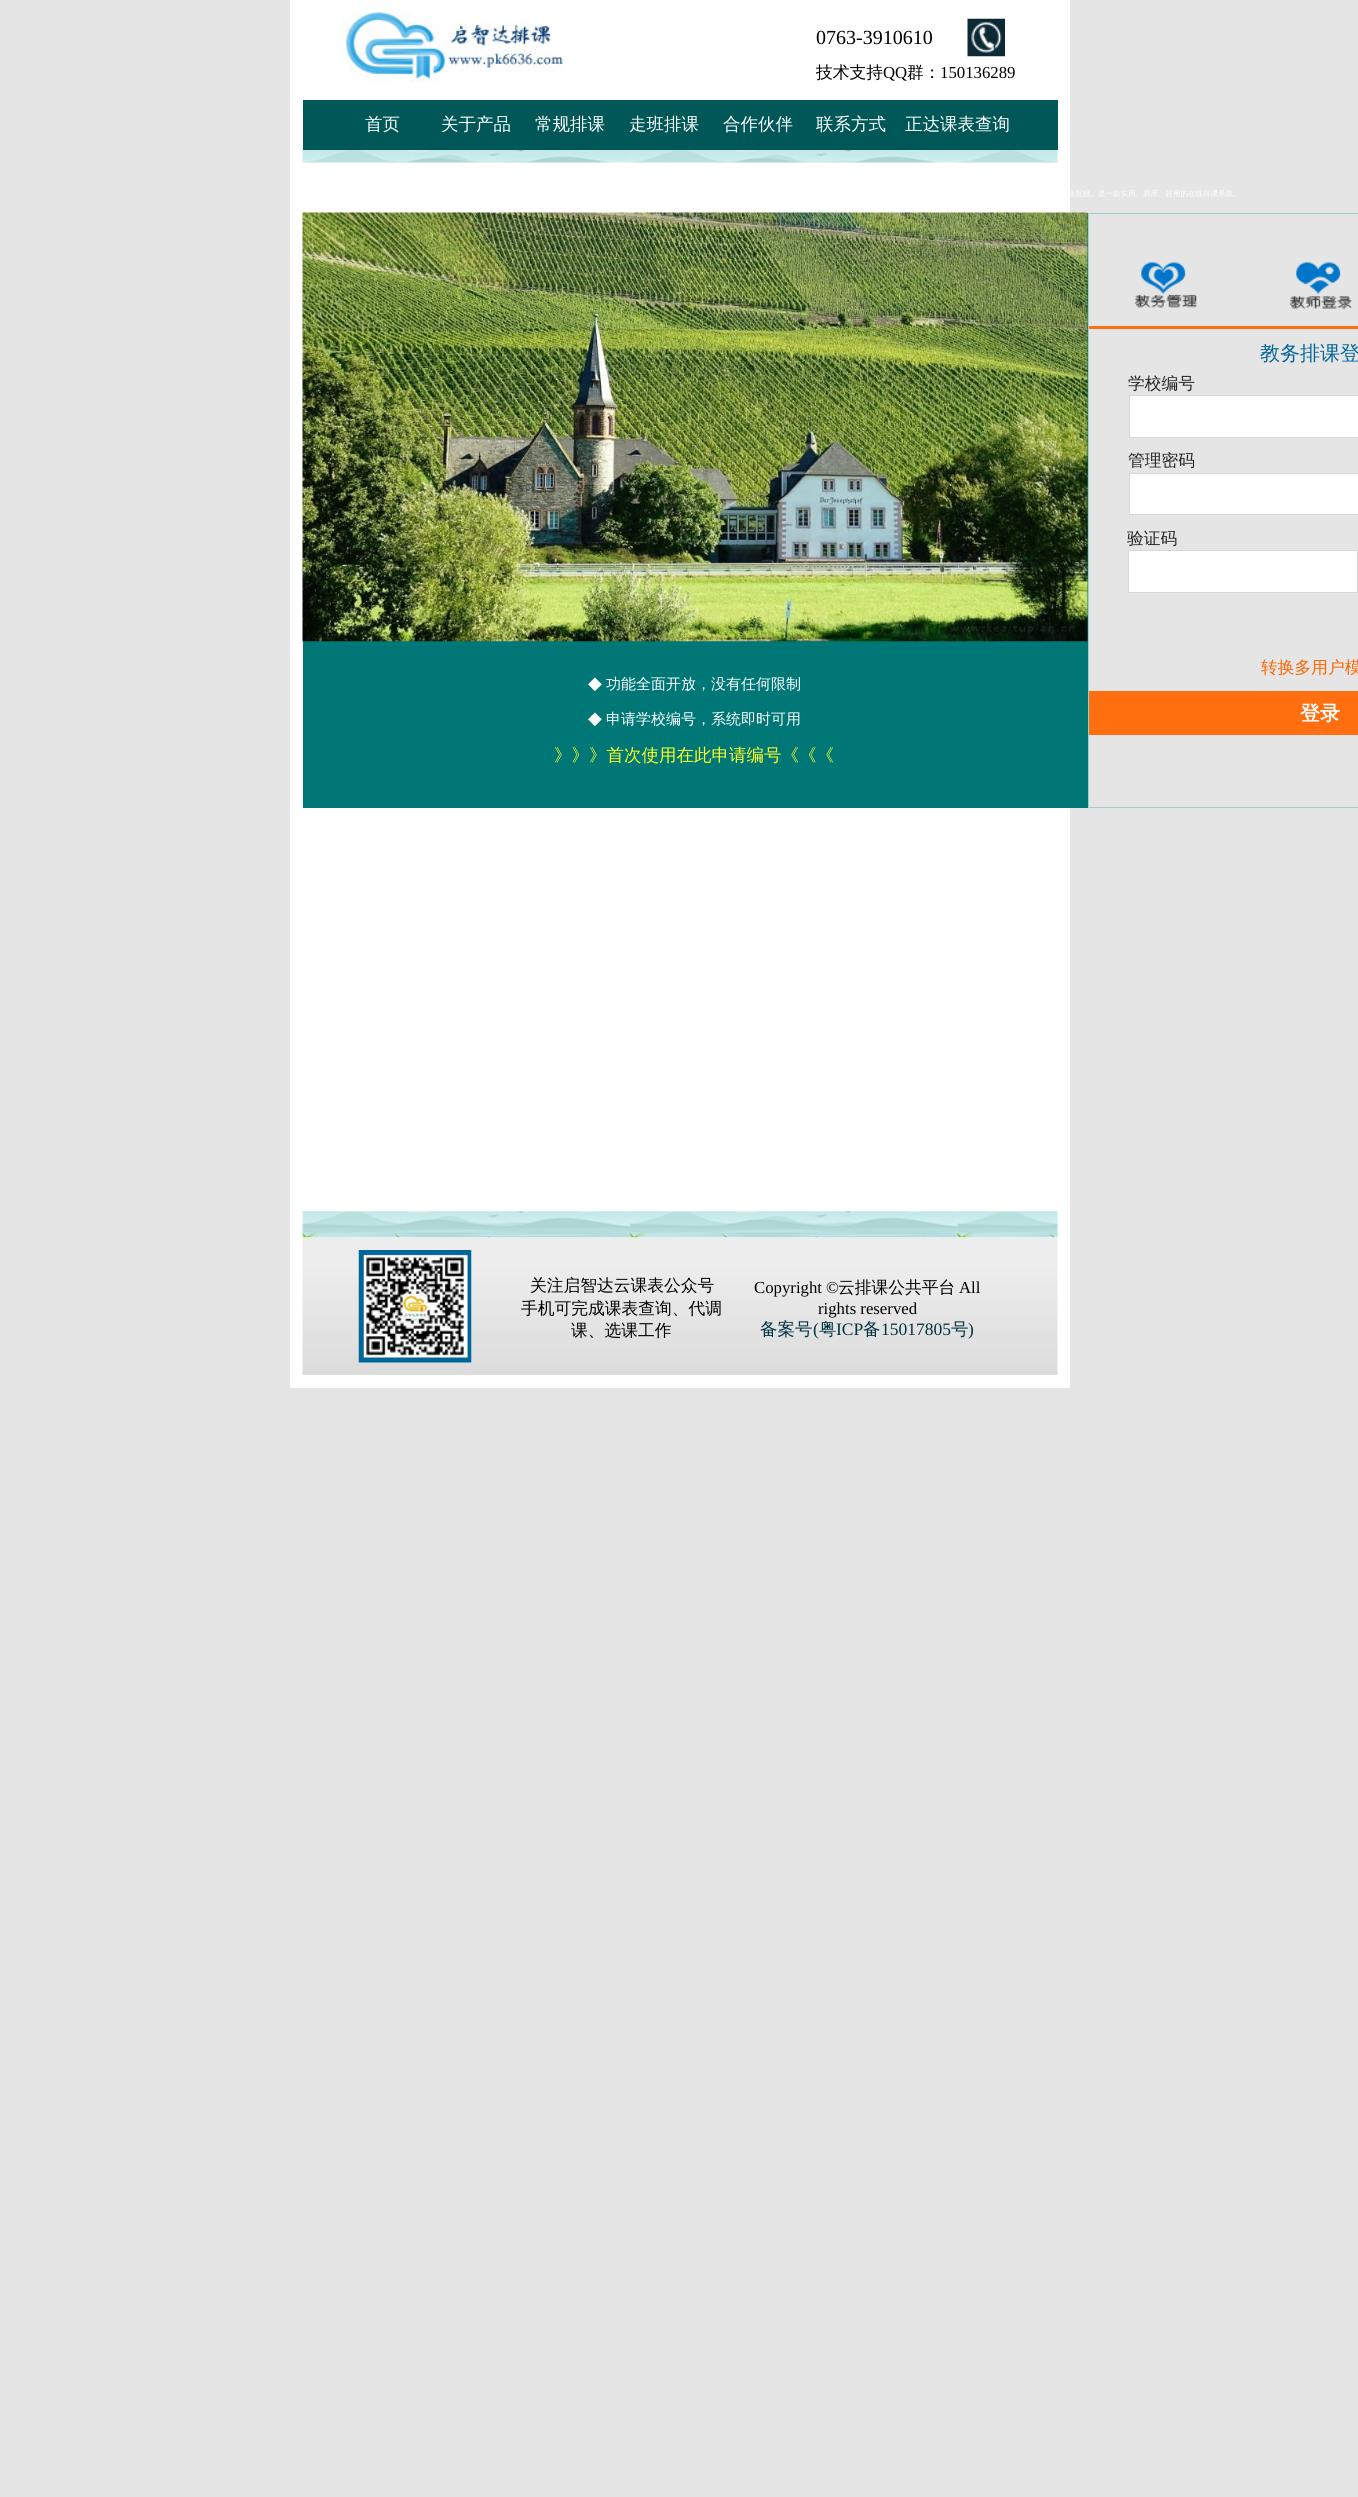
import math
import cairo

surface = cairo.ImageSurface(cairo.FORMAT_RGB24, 1358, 2497)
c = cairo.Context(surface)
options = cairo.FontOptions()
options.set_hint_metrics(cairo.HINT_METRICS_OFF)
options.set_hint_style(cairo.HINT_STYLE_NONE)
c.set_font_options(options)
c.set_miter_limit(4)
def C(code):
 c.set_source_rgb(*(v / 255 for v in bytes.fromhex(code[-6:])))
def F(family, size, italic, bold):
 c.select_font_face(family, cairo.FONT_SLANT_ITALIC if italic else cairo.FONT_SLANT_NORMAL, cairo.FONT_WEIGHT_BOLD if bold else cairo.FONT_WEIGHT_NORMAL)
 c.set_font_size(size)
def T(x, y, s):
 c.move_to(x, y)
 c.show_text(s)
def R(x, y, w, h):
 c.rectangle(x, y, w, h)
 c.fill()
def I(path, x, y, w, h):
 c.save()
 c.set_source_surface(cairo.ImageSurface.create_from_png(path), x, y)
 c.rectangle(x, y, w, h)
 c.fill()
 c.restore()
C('e5e5e5')
c.paint()
C('ffffff')
R(290,0,780,1388)
I('1.png',340,12,225,71)
F('Liberation Serif',20,0,0)
C('000000')
T(816,44,'0763-3910610')
I('2.png',967,18,38,39)
F('WenQuanYi Zen Hei Medium',16.75,0,0)
T(816,78,'技术支持')
F('Liberation Serif',16.75,0,0)
T(883,78,'QQ')
F('WenQuanYi Zen Hei Medium',16.75,0,0)
T(907,78,'群：')
F('Liberation Serif',16.75,0,0)
T(940,78,'150136289')
C('005757')
R(303,100,755,50)
F('WenQuanYi Zen Hei Medium',17.5,0,0)
C('ffffff')
T(365,130,'首页')
T(441,130,'关于产品')
T(535,130,'常规排课')
T(629,130,'走班排课')
T(723,130,'合作伙伴')
T(816,130,'联系方式')
T(905,130,'正达课表查询')
I('3.png',302,150,756,13)
I('4.png',302,1211,756,27)
F('WenQuanYi Zen Hei Medium',7.5,0,0)
T(1068,196,'业院校。是一款实用、易用、好用的在线排课系统。')
C('007777')
R(303,213,785,595)
I('5.png',302,212,786,430)
F('DejaVu Sans',18,0,0)
C('ffffff')
T(588,689,'◆')
F('WenQuanYi Zen Hei Medium',15,0,0)
T(606,689,'功能全面开放，没有任何限制')
F('DejaVu Sans',18,0,0)
T(588,724,'◆')
F('WenQuanYi Zen Hei Medium',15,0,0)
T(606,724,'申请学校编号，系统即时可用')
F('WenQuanYi Zen Hei Medium',17.5,0,0)
C('ffff24')
T(554,761,'》》》首次使用在此申请编号《《《')
c.rectangle(1088.5,213.5,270,594)
C('9ecfcf')
c.set_line_width(1)
c.stroke()
I('6.png',1134,262,63,46)
I('7.png',1289,262,63,47)
C('ff6f0f')
R(1089,326,269,3)
F('WenQuanYi Zen Hei Medium',20,0,0)
C('006699')
T(1260,360,'教务排课登')
F('WenQuanYi Zen Hei Medium',16.75,0,0)
C('222222')
T(1128,389,'学校编号')
C('ffffff')
c.rectangle(1129.5,395.5,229,42)
c.fill_preserve()
C('d7d7d7')
c.stroke()
C('222222')
T(1128,466,'管理密码')
C('ffffff')
c.rectangle(1129.5,473.5,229,41)
c.fill_preserve()
C('d7d7d7')
c.stroke()
C('222222')
T(1127,544,'验证码')
C('ffffff')
c.rectangle(1128.5,550.5,229,42)
c.fill_preserve()
C('d7d7d7')
c.stroke()
C('ff6600')
T(1261,673,'转换多用户模')
C('ff6f0f')
R(1089,691,269,44)
F('WenQuanYi Zen Hei',20,0,1)
C('ffffff')
T(1300,720,'登录')
I('8.png',302,1237,756,138)
I('9.png',358,1250,114,113)
F('WenQuanYi Zen Hei Medium',16.75,0,0)
C('000000')
T(530,1291,'关注启智达云课表公众号')
T(521,1314,'手机可完成课表查询、代调')
T(571,1336,'课、选课工作')
F('Liberation Serif',16.75,0,0)
T(754,1293,'Copyright ©')
F('WenQuanYi Zen Hei Medium',16.75,0,0)
T(838,1293,'云排课公共平台')
F('Liberation Serif',16.75,0,0)
T(959,1293,'All')
T(818,1314,'rights reserved')
F('WenQuanYi Zen Hei Medium',17.5,0,0)
C('003240')
T(760,1335,'备案号')
F('Liberation Serif',17.5,0,0)
T(813,1335,'(')
F('WenQuanYi Zen Hei Medium',17.5,0,0)
T(819,1335,'粤')
F('Liberation Serif',17.5,0,0)
T(836,1335,'ICP')
F('WenQuanYi Zen Hei Medium',17.5,0,0)
T(863,1335,'备')
F('Liberation Serif',17.5,0,0)
T(881,1335,'15017805')
F('WenQuanYi Zen Hei Medium',17.5,0,0)
T(951,1335,'号')
F('Liberation Serif',17.5,0,0)
T(968,1335,')')
surface.write_to_png('o.png')
